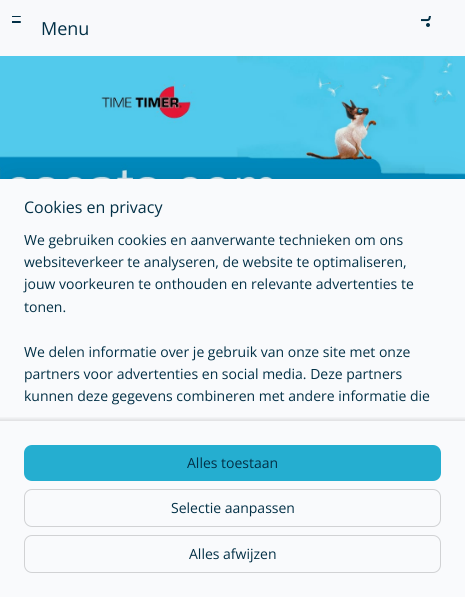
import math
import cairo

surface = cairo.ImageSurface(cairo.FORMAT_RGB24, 465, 597)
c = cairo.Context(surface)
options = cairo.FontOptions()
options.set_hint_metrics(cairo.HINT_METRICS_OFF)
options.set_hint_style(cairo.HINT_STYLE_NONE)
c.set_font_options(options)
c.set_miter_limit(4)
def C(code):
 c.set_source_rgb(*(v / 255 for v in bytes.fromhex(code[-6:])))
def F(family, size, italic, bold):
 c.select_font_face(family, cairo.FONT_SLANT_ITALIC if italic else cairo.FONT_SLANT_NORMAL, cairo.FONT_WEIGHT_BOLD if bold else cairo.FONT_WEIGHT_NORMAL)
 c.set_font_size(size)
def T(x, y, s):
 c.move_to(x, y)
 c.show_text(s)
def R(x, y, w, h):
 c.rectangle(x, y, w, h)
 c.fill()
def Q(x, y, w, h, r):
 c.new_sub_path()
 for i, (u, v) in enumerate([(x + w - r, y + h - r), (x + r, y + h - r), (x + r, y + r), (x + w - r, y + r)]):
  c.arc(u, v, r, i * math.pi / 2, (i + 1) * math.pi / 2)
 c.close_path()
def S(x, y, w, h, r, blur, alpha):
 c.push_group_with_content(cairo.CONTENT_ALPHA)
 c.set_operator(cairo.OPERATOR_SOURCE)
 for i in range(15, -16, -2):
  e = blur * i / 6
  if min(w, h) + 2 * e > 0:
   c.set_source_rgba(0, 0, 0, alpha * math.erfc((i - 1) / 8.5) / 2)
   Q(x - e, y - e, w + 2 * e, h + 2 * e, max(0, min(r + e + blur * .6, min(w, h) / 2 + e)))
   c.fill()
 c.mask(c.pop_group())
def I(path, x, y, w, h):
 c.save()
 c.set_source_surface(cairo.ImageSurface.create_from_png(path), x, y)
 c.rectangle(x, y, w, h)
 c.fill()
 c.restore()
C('ffffff')
c.paint()
C('f8f9fb')
R(0,0,465,56)
I('1.png',12,16,9,7)
F('Open Sans',18,0,0)
C('023046')
T(41,35,'Menu')
I('2.png',421,16,10,11)
I('3.png',0,56,465,123)
C('000000')
S(10,189,445,398,0,18,.2)
C('f9fafc')
R(0,179,465,418)
F('Open Sans',16,0,0)
C('023046')
T(24,213,'Cookies en privacy')
F('Open Sans',14,0,0)
T(24,245,'We gebruiken cookies en aanverwante technieken om ons')
T(24,267,'websiteverkeer te analyseren, de website te optimaliseren,')
T(24,289,'jouw voorkeuren te onthouden en relevante advertenties te')
T(24,312,'tonen.')
T(24,357,'We delen informatie over je gebruik van onze site met onze')
T(24,379,'partners voor advertenties en social media. Deze partners')
T(24,401,'kunnen deze gegevens combineren met andere informatie die')
gradient = cairo.LinearGradient(233,415,233,421)
gradient.add_color_stop_rgba(.2,0,0,0,0)
gradient.add_color_stop_rgba(1,0,0,0,.1)
c.set_source(gradient)
R(0,417,465,4)
C('25aed0')
Q(24,445,417,36,8)
c.fill()
C('023046')
T(187,468,'Alles toestaan')
Q(24.5,489.5,416,37,7.5)
C('d1d2d4')
c.set_line_width(1)
c.stroke()
C('023046')
T(171,513,'Selectie aanpassen')
Q(24.5,535.5,416,37,7.5)
C('d1d2d4')
c.stroke()
C('023046')
T(189,559,'Alles afwijzen')
surface.write_to_png('o.png')
